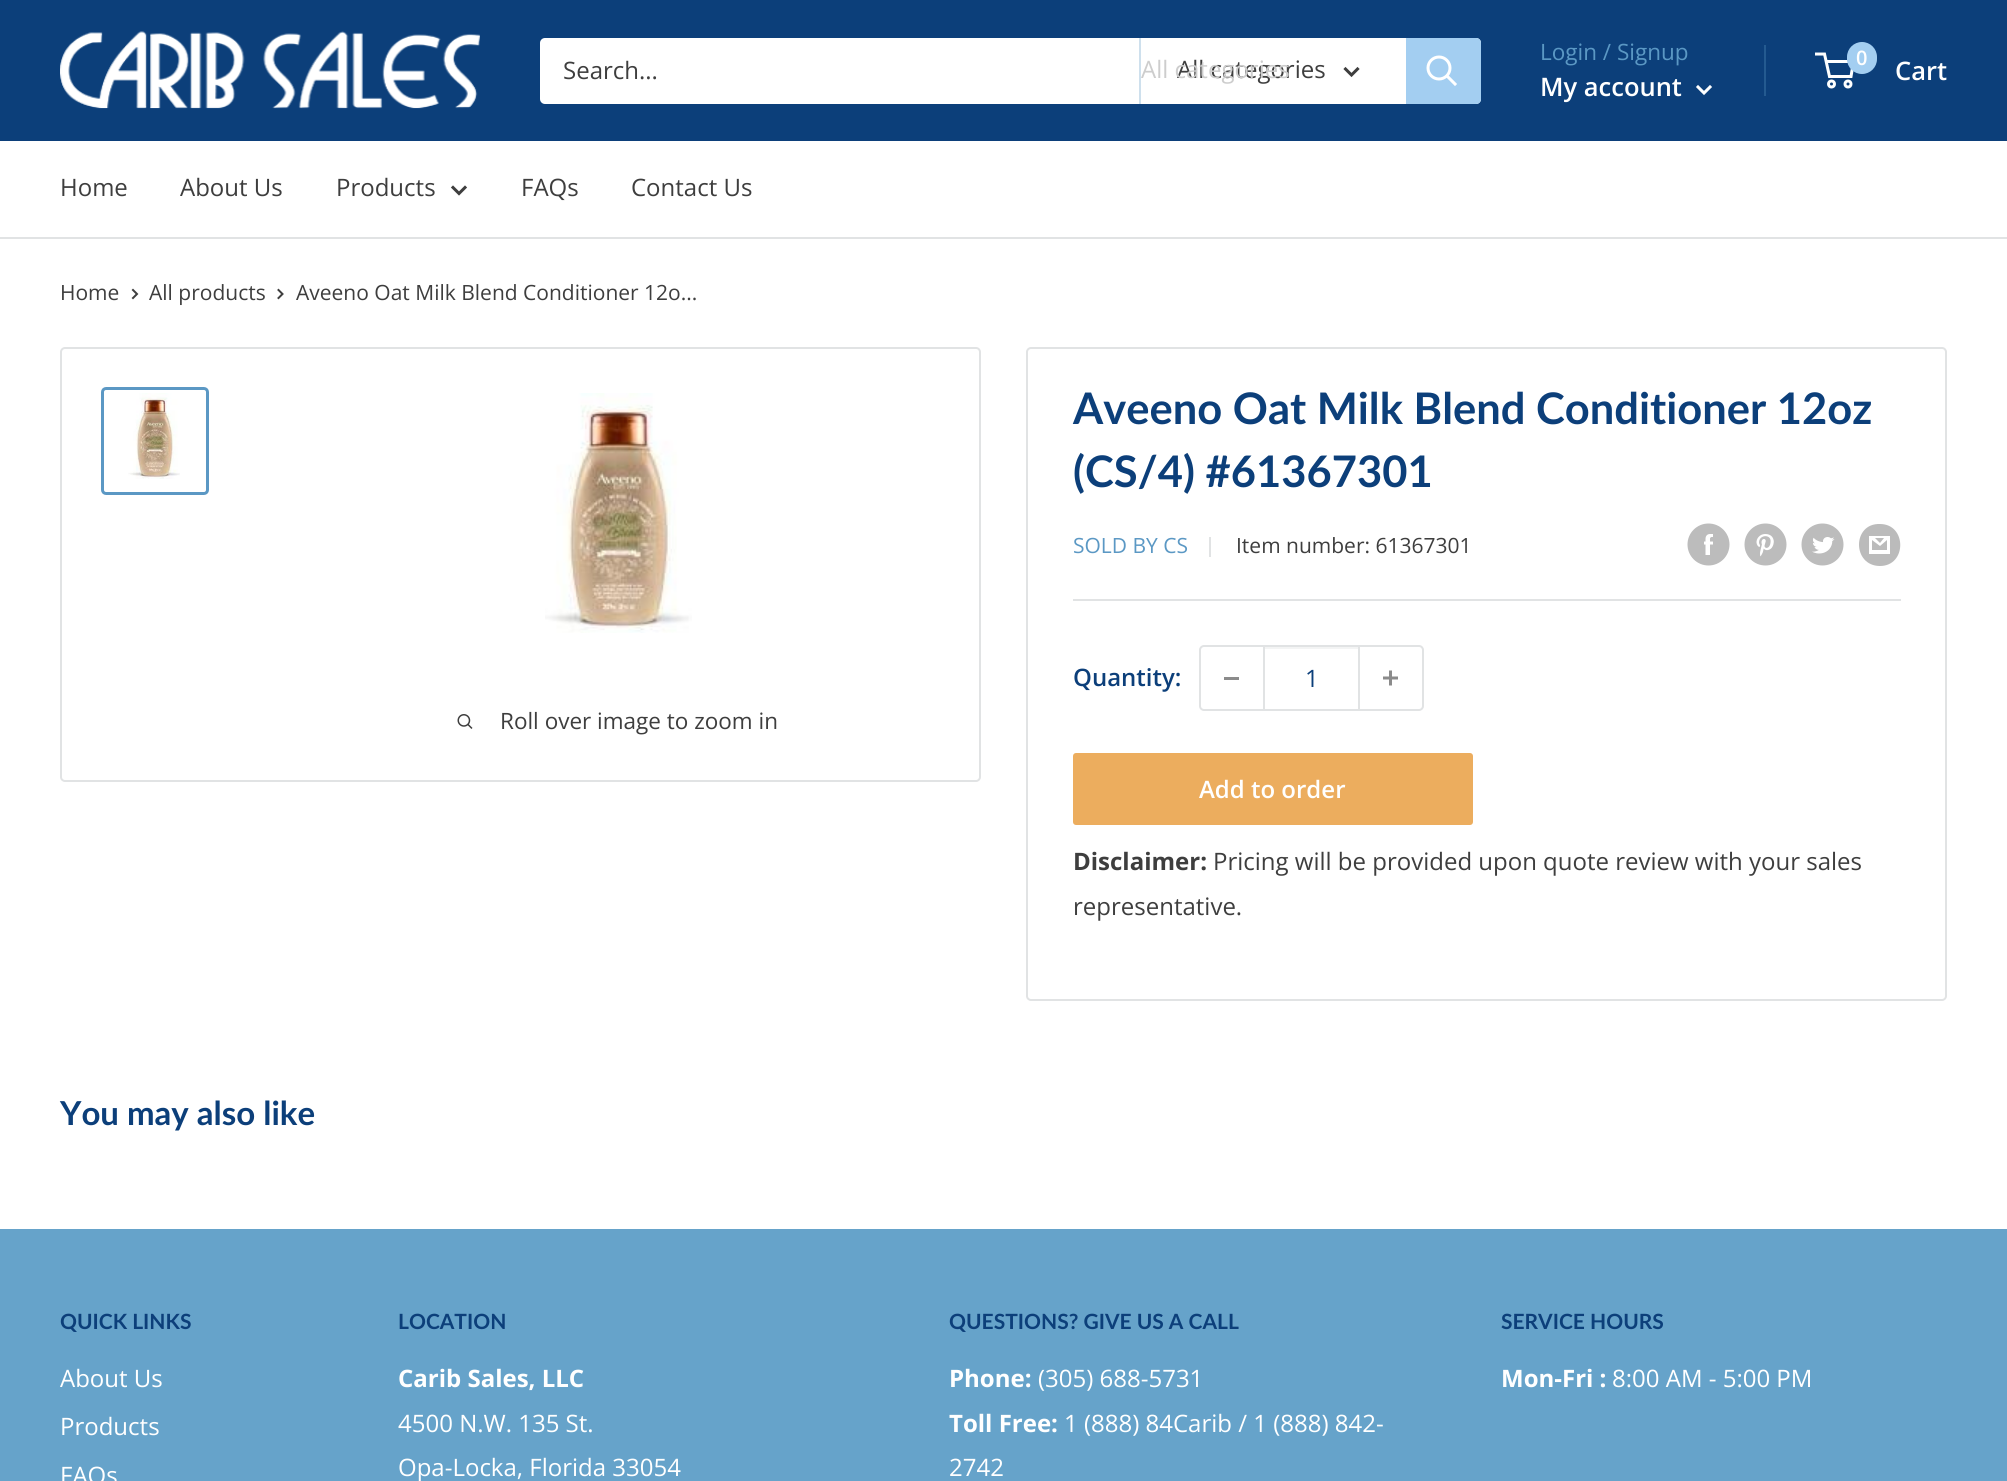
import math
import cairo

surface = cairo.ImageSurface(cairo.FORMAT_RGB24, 2007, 1481)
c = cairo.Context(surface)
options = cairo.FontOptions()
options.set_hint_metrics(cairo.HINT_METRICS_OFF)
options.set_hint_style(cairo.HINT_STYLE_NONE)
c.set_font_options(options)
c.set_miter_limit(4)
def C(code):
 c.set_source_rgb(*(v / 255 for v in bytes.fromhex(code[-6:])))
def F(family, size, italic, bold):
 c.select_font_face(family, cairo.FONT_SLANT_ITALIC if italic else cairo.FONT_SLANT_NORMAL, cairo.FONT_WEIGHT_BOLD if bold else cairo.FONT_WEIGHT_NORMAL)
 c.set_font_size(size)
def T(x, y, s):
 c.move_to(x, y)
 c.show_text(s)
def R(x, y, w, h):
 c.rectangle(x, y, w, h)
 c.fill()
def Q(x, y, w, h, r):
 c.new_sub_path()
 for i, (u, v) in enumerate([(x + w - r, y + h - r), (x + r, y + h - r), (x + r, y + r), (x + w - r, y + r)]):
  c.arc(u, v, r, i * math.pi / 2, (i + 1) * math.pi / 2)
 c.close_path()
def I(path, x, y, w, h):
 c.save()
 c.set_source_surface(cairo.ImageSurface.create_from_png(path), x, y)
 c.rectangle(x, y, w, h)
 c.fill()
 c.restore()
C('ffffff')
c.paint()
C('0c3f7a')
R(0,0,2007,141)
I('1.png',60,31,420,78)
C('ffffff')
Q(540,38,941,66,5)
c.fill()
F('Open Sans',24,0,0)
C('3e3e3e')
T(563,79,'Search...')
C('cee0ed')
R(1139,38,2,66)
C('3e3e3e')
T(1177,78,'All categories')
C('cdcdcd')
T(1141,78,'All categories')
c.new_path()
c.move_to(1357.5,69)
c.line_to(1351.5,75)
c.line_to(1345.5,69)
C('3e3e3e')
c.set_line_width(3)
c.set_line_cap(cairo.LINE_CAP_SQUARE)
c.stroke()
C('a3cef1')
c.new_path()
c.move_to(1406,38)
c.line_to(1476,38)
c.curve_to(1479,38,1481,40,1481,43)
c.line_to(1481,99)
c.curve_to(1481,102,1479,104,1476,104)
c.line_to(1406,104)
c.close_path()
c.fill()
c.new_path()
c.move_to(1455,84)
c.line_to(1447.5,76.5)
C('ffffff')
c.stroke()
c.arc(1439,68,11,0,2 * math.pi)
c.set_line_cap(cairo.LINE_CAP_BUTT)
c.stroke()
F('Open Sans',22.5,0,0)
C('5b98c4')
T(1540,60,'Login / Signup')
C('245a90')
R(1764,45,2,51)
F('Open Sans SemiBold',25.5,0,0)
C('ffffff')
T(1540,96,'My account')
c.new_path()
c.move_to(1710,87)
c.line_to(1704,93)
c.line_to(1698,87)
c.set_line_cap(cairo.LINE_CAP_SQUARE)
c.stroke()
c.arc(1831.5,84,3,0,2 * math.pi)
c.set_line_cap(cairo.LINE_CAP_BUTT)
c.stroke()
c.arc(1848,84,3,0,2 * math.pi)
c.stroke()
c.new_path()
c.move_to(1826,61.5)
c.line_to(1853.5,61.5)
c.line_to(1851,76.5)
c.line_to(1829.5,76.5)
c.line_to(1824.5,54)
c.line_to(1815,54)
c.stroke()
C('a3cef1')
Q(1847,42,30,32,15)
c.fill()
F('Open Sans SemiBold',20,0,0)
C('ffffff')
T(1856,65,'0')
F('Open Sans SemiBold',25.5,0,0)
T(1895,80,'Cart')
C('e1e3e4')
R(0,237,2007,2)
F('Open Sans',24,0,0)
C('3e3e3e')
T(60,196,'Home')
T(180,196,'About Us')
T(336,196,'Products')
c.new_path()
c.move_to(465,187.5)
c.line_to(459,193.5)
c.line_to(453,187.5)
c.set_line_cap(cairo.LINE_CAP_SQUARE)
c.stroke()
T(521,196,'FAQs')
T(631,196,'Contact Us')
F('Open Sans',21,0,0)
T(60,300,'Home')
c.new_path()
c.move_to(133,290)
c.line_to(137,294)
c.line_to(133,298)
c.set_line_width(2)
c.stroke()
T(149,300,'All products')
c.new_path()
c.move_to(278.5,290)
c.line_to(282.5,294)
c.line_to(278.5,298)
c.stroke()
T(296,300,'Aveeno Oat Milk Blend Conditioner 12o...')
Q(61,348,919,433,4)
C('e1e3e4')
c.set_line_cap(cairo.LINE_CAP_BUTT)
c.stroke()
Q(102.5,388.5,105,105,3.5)
C('5b98c4')
c.set_line_width(3)
c.stroke()
I('2.png',128,393,52,86)
I('3.png',545,393,147,240)
I('4.png',457,714,16,15)
F('Open Sans',22.5,0,0)
C('3e3e3e')
T(500,729,'Roll over image to zoom in')
Q(1027,348,919,652,4)
C('e1e3e4')
c.set_line_width(2)
c.stroke()
F('Lato',43.5,0,1)
C('0c3f7a')
T(1073,424,'Aveeno Oat Milk Blend Conditioner 12oz')
T(1073,487,'(CS/4) #61367301')
F('Open Sans',21,0,0)
C('5b98c4')
T(1073,553,'SOLD BY CS')
C('e1e3e4')
R(1209,537,2,20)
C('3e3e3e')
T(1236,553,'Item number: 61367301')
I('5.png',1687,523,43,43)
I('6.png',1744,523,43,43)
I('7.png',1801,523,43,43)
C('bbbbbb')
c.new_path()
c.move_to(1880,566)
c.curve_to(1852,566,1852,523,1880,524)
c.curve_to(1907,524,1907,566,1880,566)
c.close_path()
c.move_to(1875,538)
c.line_to(1884,538)
c.line_to(1880,543)
c.close_path()
c.move_to(1887,540)
c.line_to(1887,550)
c.line_to(1872,550)
c.line_to(1872,540)
c.line_to(1880,546)
c.close_path()
c.move_to(1890,536)
c.line_to(1869,536)
c.line_to(1869,554)
c.line_to(1890,554)
c.close_path()
c.fill()
C('e1e3e4')
R(1073,599,828,2)
F('Open Sans SemiBold',24,0,0)
C('0c3f7a')
T(1073,686,'Quantity:')
Q(1200,646,223,64,4)
C('e1e3e4')
c.stroke()
C('8b8b8b')
R(1224,677,15,3)
C('f3f4f4')
R(1265,647,93,2)
C('e1e3e4')
R(1358,647,2,63)
R(1263,647,2,63)
F('Open Sans',24,0,0)
C('0c3f7a')
T(1305,687,'1')
I('8.png',1383,670,15,16)
C('ecad5e')
Q(1073,753,400,72,3)
c.fill()
F('Open Sans SemiBold',24,0,0)
C('ffffff')
T(1199,798,'Add to order')
F('Open Sans',24,0,1)
C('3e3e3e')
T(1073,870,'Disclaimer:')
F('Open Sans',24,0,0)
T(1213,870,'Pricing will be provided upon quote review with your sales')
T(1073,915,'representative.')
F('Lato',33,0,1)
C('0c3f7a')
T(60,1125,'You may also like')
C('66a3ca')
R(0,1229,2007,252)
F('Lato',21,0,1)
C('0c3f7a')
T(60,1329,'QUICK LINKS')
F('Open Sans',24,0,0)
C('ffffff')
T(60,1387,'About Us')
T(60,1435,'Products')
T(60,1484,'FAQs')
F('Lato',21,0,1)
C('0c3f7a')
T(398,1329,'LOCATION')
F('Open Sans',24,0,1)
C('ffffff')
T(398,1387,'Carib Sales, LLC')
F('Open Sans',24,0,0)
T(398,1432,'4500 N.W. 135 St.')
T(398,1476,'Opa-Locka, Florida 33054')
F('Lato',21,0,1)
C('0c3f7a')
T(949,1329,'QUESTIONS? GIVE US A CALL')
F('Open Sans',24,0,1)
C('ffffff')
T(949,1387,'Phone:')
F('Open Sans',24,0,0)
T(1038,1387,'(305) 688-5731')
F('Open Sans',24,0,1)
T(949,1432,'Toll Free:')
F('Open Sans',24,0,0)
T(1064,1432,'1 (888) 84Carib / 1 (888) 842-')
T(949,1476,'2742')
F('Lato',21,0,1)
C('0c3f7a')
T(1501,1329,'SERVICE HOURS')
F('Open Sans',24,0,1)
C('ffffff')
T(1501,1387,'Mon-Fri :')
F('Open Sans',24,0,0)
T(1612,1387,'8:00 AM - 5:00 PM')
surface.write_to_png('o.png')
